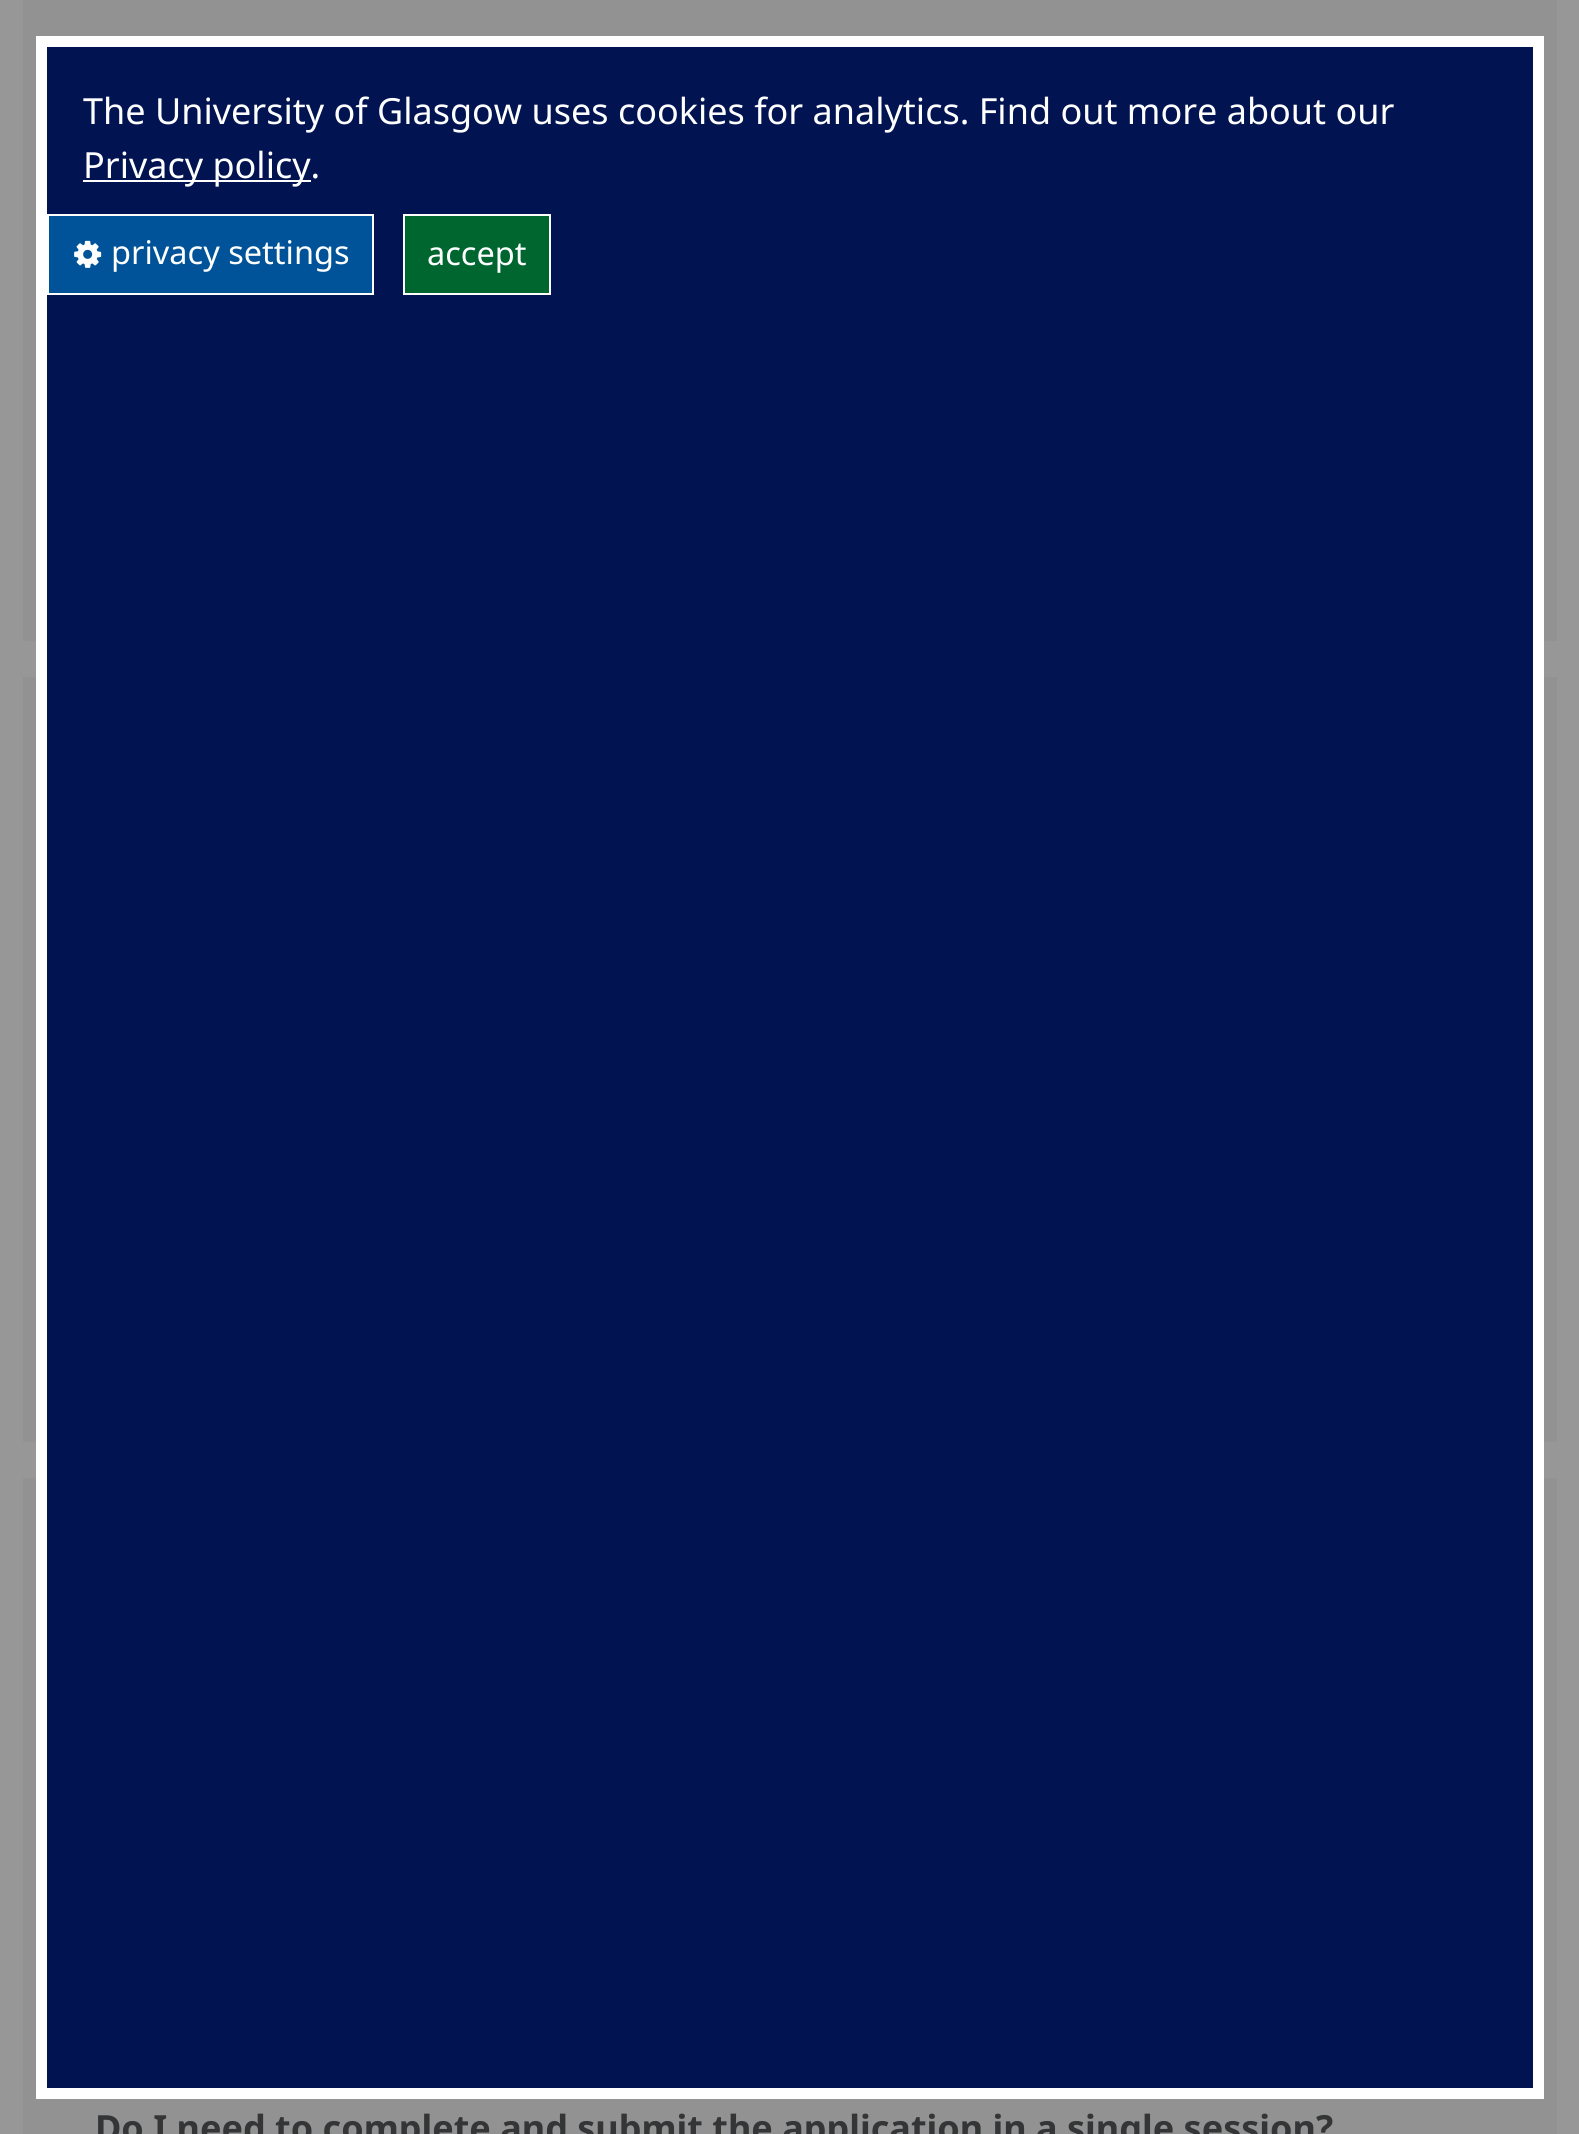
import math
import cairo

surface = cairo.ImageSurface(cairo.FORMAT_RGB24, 1579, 2134)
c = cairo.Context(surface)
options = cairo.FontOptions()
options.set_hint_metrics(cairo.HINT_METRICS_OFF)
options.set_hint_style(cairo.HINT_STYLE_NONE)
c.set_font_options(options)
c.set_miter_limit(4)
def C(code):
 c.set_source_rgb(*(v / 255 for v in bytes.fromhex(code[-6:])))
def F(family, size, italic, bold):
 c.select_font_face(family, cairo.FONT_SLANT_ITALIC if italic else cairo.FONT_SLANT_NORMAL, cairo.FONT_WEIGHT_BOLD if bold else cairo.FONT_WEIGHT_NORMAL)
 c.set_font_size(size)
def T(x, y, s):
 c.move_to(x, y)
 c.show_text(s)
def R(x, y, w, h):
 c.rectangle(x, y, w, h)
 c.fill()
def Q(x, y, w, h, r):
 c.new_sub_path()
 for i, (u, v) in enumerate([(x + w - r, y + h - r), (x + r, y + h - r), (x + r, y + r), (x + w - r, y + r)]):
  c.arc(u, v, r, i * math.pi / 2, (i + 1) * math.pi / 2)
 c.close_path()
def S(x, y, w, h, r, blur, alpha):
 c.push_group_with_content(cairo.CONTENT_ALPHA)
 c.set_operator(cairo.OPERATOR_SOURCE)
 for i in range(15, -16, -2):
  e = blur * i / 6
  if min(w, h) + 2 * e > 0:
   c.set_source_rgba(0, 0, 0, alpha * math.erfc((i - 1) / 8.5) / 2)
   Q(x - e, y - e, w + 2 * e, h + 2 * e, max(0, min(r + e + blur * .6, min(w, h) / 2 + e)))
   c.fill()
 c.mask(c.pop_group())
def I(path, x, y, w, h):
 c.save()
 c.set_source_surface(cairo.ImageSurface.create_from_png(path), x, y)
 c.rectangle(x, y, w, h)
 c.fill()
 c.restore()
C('ffffff')
c.paint()
C('f7f7f7')
R(23,0,1534,641)
R(23,677,1534,765)
R(23,1478,1534,656)
C('000000')
S(-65,-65,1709,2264,0,21.5,.41)
C('011451')
c.rectangle(41.5,41.5,1497,2052)
c.fill_preserve()
C('ffffff')
c.set_line_width(11)
c.stroke()
F('Noto Sans',36,0,0)
T(83,124,'The University of Glasgow uses cookies for analytics. Find out more about our')
R(83,180,228,2)
T(83,178,'Privacy policy.')
C('005398')
c.rectangle(48,215,325,79)
c.fill_preserve()
C('ffffff')
c.set_line_width(2)
c.stroke()
I('1.png',74,240,28,28)
F('Noto Sans',32.5,0,0)
T(111,264,'privacy settings')
C('006630')
c.rectangle(404,215,146,79)
c.fill_preserve()
C('ffffff')
c.stroke()
T(427,265,'accept')
F('Noto Sans',36,0,1)
C('343536')
T(95,2141,'Do I need to complete and submit the application in a single session?')
surface.write_to_png('o.png')
